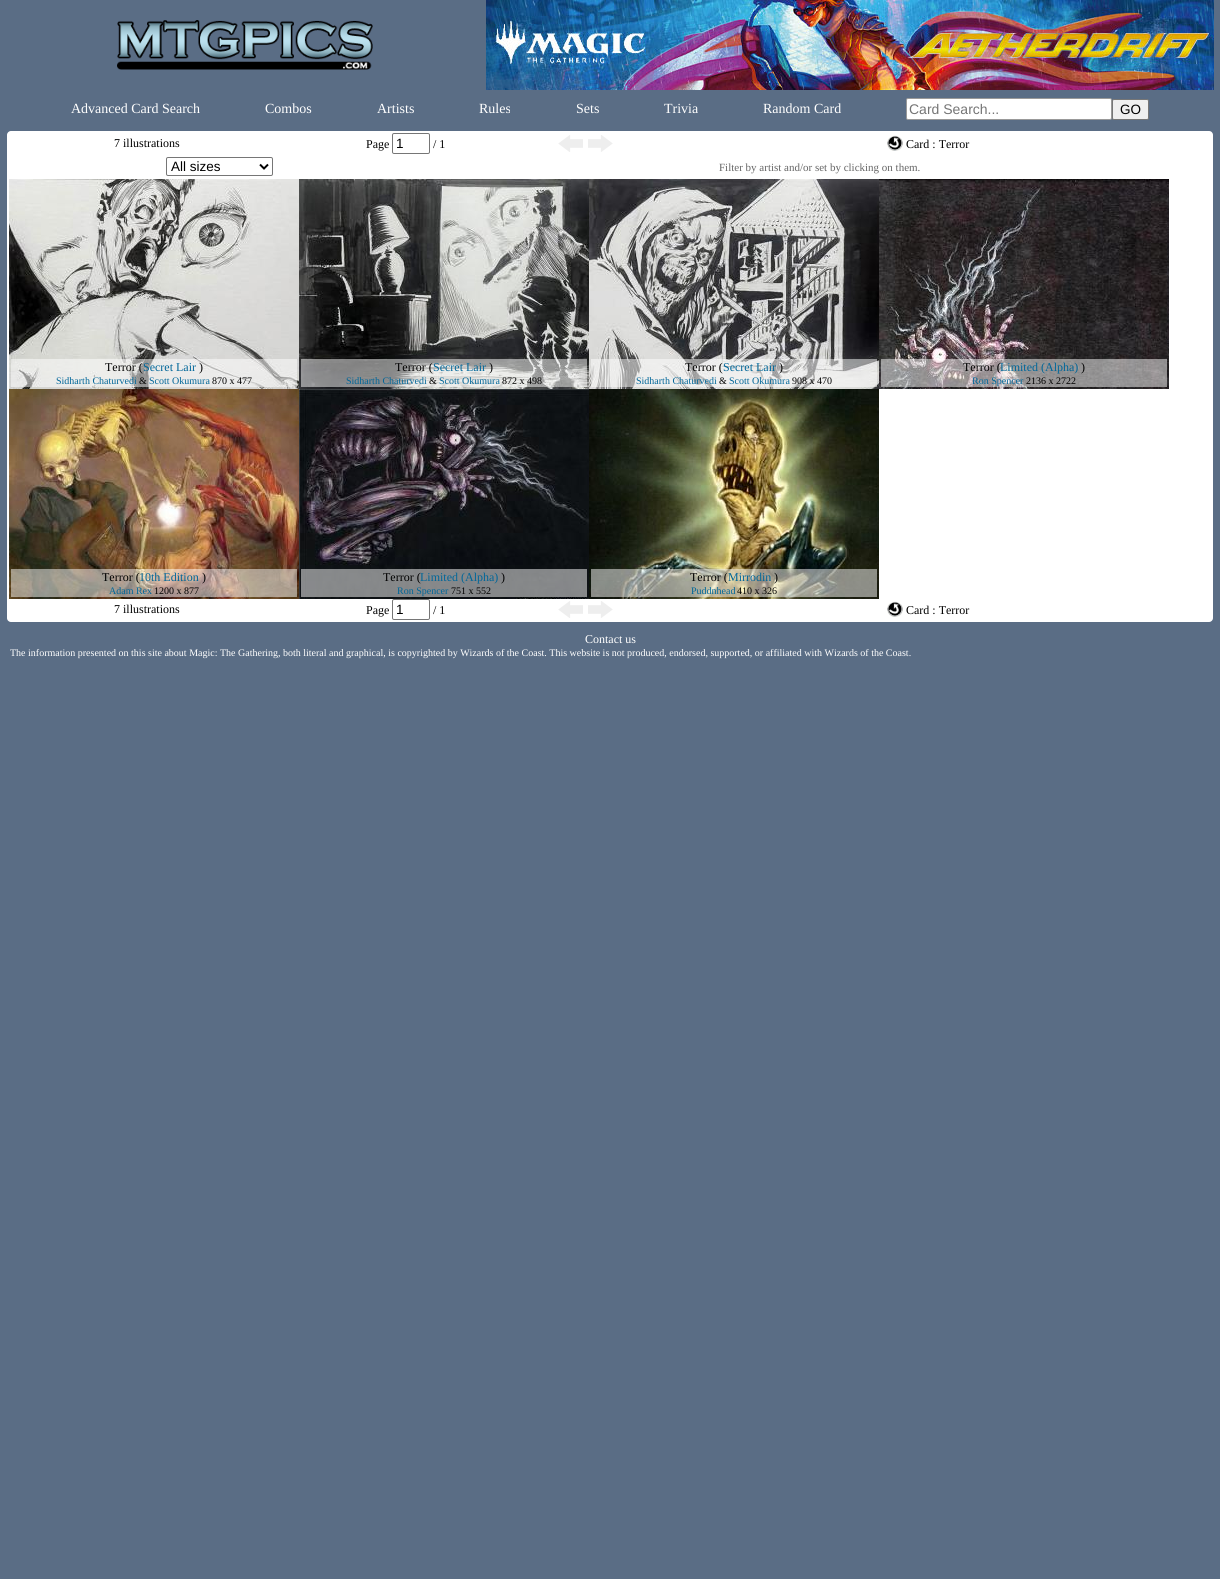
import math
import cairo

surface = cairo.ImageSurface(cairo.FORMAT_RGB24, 1220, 1579)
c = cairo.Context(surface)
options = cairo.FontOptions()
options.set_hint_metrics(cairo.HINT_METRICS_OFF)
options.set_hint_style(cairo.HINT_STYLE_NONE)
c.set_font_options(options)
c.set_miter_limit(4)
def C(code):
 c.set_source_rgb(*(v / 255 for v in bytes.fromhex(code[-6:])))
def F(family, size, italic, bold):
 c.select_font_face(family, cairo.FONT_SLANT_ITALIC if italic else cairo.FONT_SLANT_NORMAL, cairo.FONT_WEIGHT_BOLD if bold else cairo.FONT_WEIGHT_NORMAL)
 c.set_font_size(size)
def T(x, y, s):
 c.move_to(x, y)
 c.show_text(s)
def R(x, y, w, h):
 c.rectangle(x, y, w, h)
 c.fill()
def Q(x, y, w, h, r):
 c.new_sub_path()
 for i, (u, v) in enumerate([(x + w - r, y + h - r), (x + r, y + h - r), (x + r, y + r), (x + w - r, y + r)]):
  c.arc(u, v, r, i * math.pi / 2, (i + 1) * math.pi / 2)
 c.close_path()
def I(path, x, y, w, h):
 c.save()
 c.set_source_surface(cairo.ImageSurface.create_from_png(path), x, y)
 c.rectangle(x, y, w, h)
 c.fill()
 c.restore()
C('5a6d85')
c.paint()
I('1.png',117,20,256,50)
I('2.png',486,0,728,90)
F('Liberation Serif',14,0,0)
C('ffffff')
T(71,113,'Advanced Card Search')
T(265,113,'Combos')
T(377,113,'Artists')
T(479,113,'Rules')
T(576,113,'Sets')
T(664,113,'Trivia')
T(763,113,'Random Card')
Q(906.5,98.5,205,21,1.5)
c.fill_preserve()
C('999999')
c.set_line_width(1)
c.stroke()
F('Liberation Sans',14,0,0)
C('757575')
T(909,114,'Card Search...')
C('efefef')
Q(1112.5,99.5,36,20,1.5)
c.fill_preserve()
C('767676')
c.stroke()
F('Liberation Sans',13.5,0,0)
C('000000')
T(1120,114,'GO')
C('ffffff')
Q(7,131,1206,491,4)
c.fill()
F('Liberation Serif',12,0,0)
C('000000')
T(114,147,'7 illustrations')
T(366,148,'Page')
Q(392.5,133.5,37,20,1.5)
C('767676')
c.stroke()
F('Liberation Sans',13.5,0,0)
C('000000')
T(396,148,'1')
F('Liberation Serif',12,0,0)
T(433,148,'/ 1')
I('3.png',558,135,25,17)
I('4.png',588,135,25,17)
I('5.png',887,135,16,16)
T(906,148,'Card : Terror')
Q(166.5,157.5,106,18,1.5)
C('767676')
c.stroke()
c.new_path()
c.move_to(260,164.5)
c.line_to(264,168.5)
c.line_to(268,164.5)
C('000000')
c.set_line_width(2)
c.stroke()
F('Liberation Sans',13.5,0,0)
T(171,171,'All sizes')
F('Liberation Serif',11,0,0)
C('666666')
T(719,171,'Filter by artist and/or set by clicking on them.')
I('6.png',9,179,290,210)
c.set_source_rgba(1,1,1,0.5)
R(11,359,286,28)
F('Liberation Serif',12,0,0)
C('000000')
T(105,371,'Terror (')
C('006699')
T(143,371,'Secret Lair')
C('000000')
T(199,371,')')
F('Liberation Serif',10,0,0)
C('006699')
T(56,384,'Sidharth Chaturvedi')
C('000000')
T(139,384,'&')
C('006699')
T(149,384,'Scott Okumura')
C('000000')
T(212,384,'870 x 477')
I('7.png',299,179,290,210)
c.set_source_rgba(1,1,1,0.5)
R(301,359,286,28)
F('Liberation Serif',12,0,0)
C('000000')
T(395,371,'Terror (')
C('006699')
T(433,371,'Secret Lair')
C('000000')
T(489,371,')')
F('Liberation Serif',10,0,0)
C('006699')
T(346,384,'Sidharth Chaturvedi')
C('000000')
T(429,384,'&')
C('006699')
T(439,384,'Scott Okumura')
C('000000')
T(502,384,'872 x 498')
I('8.png',589,179,290,210)
c.set_source_rgba(1,1,1,0.5)
R(591,359,286,28)
F('Liberation Serif',12,0,0)
C('000000')
T(685,371,'Terror (')
C('006699')
T(723,371,'Secret Lair')
C('000000')
T(779,371,')')
F('Liberation Serif',10,0,0)
C('006699')
T(636,384,'Sidharth Chaturvedi')
C('000000')
T(719,384,'&')
C('006699')
T(729,384,'Scott Okumura')
C('000000')
T(792,384,'908 x 470')
I('9.png',879,179,290,210)
c.set_source_rgba(1,1,1,0.5)
R(881,359,286,28)
F('Liberation Serif',12,0,0)
C('000000')
T(963,371,'Terror (')
C('006699')
T(1000,371,'Limited (Alpha)')
C('000000')
T(1081,371,')')
F('Liberation Serif',10,0,0)
C('006699')
T(972,384,'Ron Spencer')
C('000000')
T(1026,384,'2136 x 2722')
I('10.png',9,389,290,210)
c.set_source_rgba(1,1,1,0.5)
R(11,569,286,28)
F('Liberation Serif',12,0,0)
C('000000')
T(102,581,'Terror (')
C('006699')
T(139,581,'10th Edition')
C('000000')
T(202,581,')')
F('Liberation Serif',10,0,0)
C('006699')
T(109,594,'Adam Rex')
C('000000')
T(154,594,'1200 x 877')
I('11.png',299,389,290,210)
c.set_source_rgba(1,1,1,0.5)
R(301,569,286,28)
F('Liberation Serif',12,0,0)
C('000000')
T(383,581,'Terror (')
C('006699')
T(420,581,'Limited (Alpha)')
C('000000')
T(501,581,')')
F('Liberation Serif',10,0,0)
C('006699')
T(397,594,'Ron Spencer')
C('000000')
T(451,594,'751 x 552')
I('12.png',589,389,290,210)
c.set_source_rgba(1,1,1,0.5)
R(591,569,286,28)
F('Liberation Serif',12,0,0)
C('000000')
T(690,581,'Terror (')
C('006699')
T(728,581,'Mirrodin')
C('000000')
T(774,581,')')
F('Liberation Serif',10,0,0)
C('006699')
T(691,594,'Puddnhead')
C('000000')
T(737,594,'410 x 326')
F('Liberation Serif',12,0,0)
T(114,613,'7 illustrations')
T(366,614,'Page')
Q(392.5,599.5,37,20,1.5)
C('767676')
c.set_line_width(1)
c.stroke()
F('Liberation Sans',13.5,0,0)
C('000000')
T(396,614,'1')
F('Liberation Serif',12,0,0)
T(433,614,'/ 1')
I('3.png',558,601,25,17)
I('4.png',588,601,25,17)
I('5.png',887,601,16,16)
T(906,614,'Card : Terror')
C('ffffff')
T(585,643,'Contact us')
F('Liberation Serif',10,0,0)
T(10,656,'The information presented on this site about Magic: The Gathering, both literal and graphical, is copyrighted by Wizards of the Coast. This website is not produced, endorsed, supported, or affiliated with Wizards of the Coast.')
surface.write_to_png('o.png')
